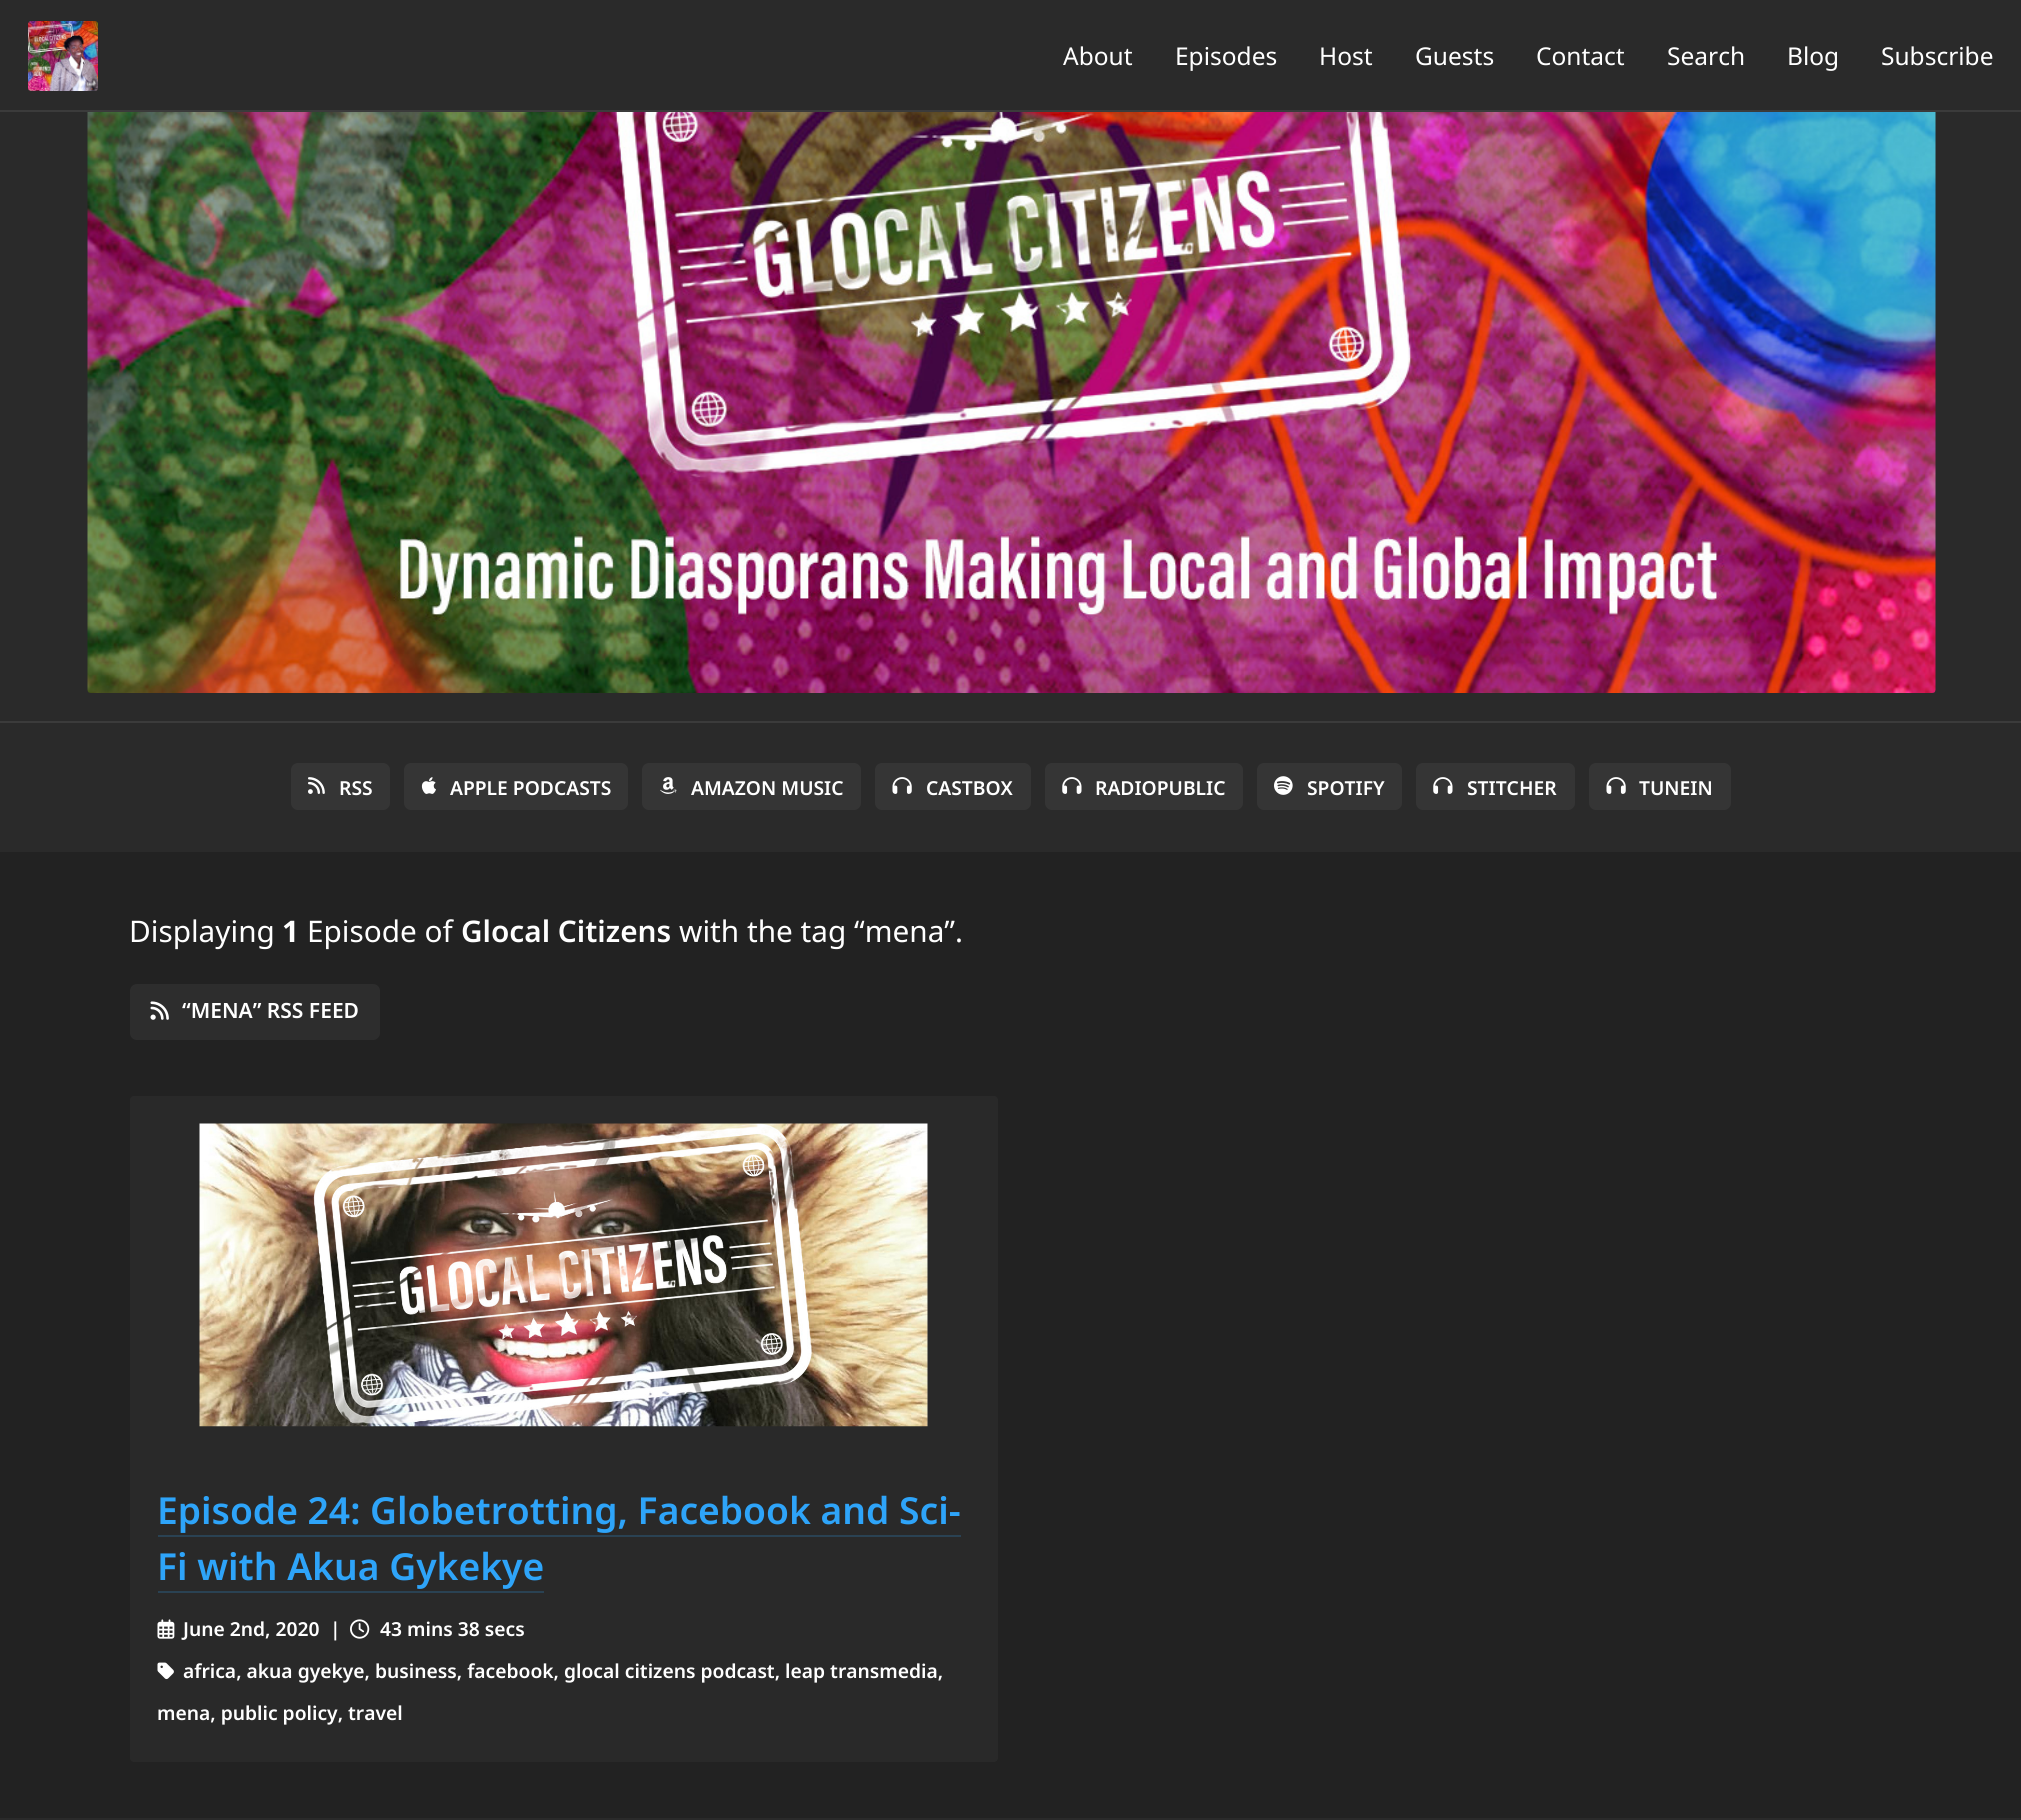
import math
import cairo

surface = cairo.ImageSurface(cairo.FORMAT_RGB24, 2021, 1820)
c = cairo.Context(surface)
options = cairo.FontOptions()
options.set_hint_metrics(cairo.HINT_METRICS_OFF)
options.set_hint_style(cairo.HINT_STYLE_NONE)
c.set_font_options(options)
c.set_miter_limit(4)
def C(code):
 c.set_source_rgb(*(v / 255 for v in bytes.fromhex(code[-6:])))
def F(family, size, italic, bold):
 c.select_font_face(family, cairo.FONT_SLANT_ITALIC if italic else cairo.FONT_SLANT_NORMAL, cairo.FONT_WEIGHT_BOLD if bold else cairo.FONT_WEIGHT_NORMAL)
 c.set_font_size(size)
def T(x, y, s):
 c.move_to(x, y)
 c.show_text(s)
def R(x, y, w, h):
 c.rectangle(x, y, w, h)
 c.fill()
def Q(x, y, w, h, r):
 c.new_sub_path()
 for i, (u, v) in enumerate([(x + w - r, y + h - r), (x + r, y + h - r), (x + r, y + r), (x + w - r, y + r)]):
  c.arc(u, v, r, i * math.pi / 2, (i + 1) * math.pi / 2)
 c.close_path()
def I(path, x, y, w, h):
 c.save()
 c.set_source_surface(cairo.ImageSurface.create_from_png(path), x, y)
 c.rectangle(x, y, w, h)
 c.fill()
 c.restore()
C('222222')
c.paint()
C('2a2a2a')
R(0,0,2021,110)
C('3b3b3b')
R(0,110,2021,2)
I('1.png',28,21,70,70)
F('Noto Sans',24.5,0,0)
C('ffffff')
T(1063,65,'About')
T(1175,65,'Episodes')
T(1319,65,'Host')
T(1415,65,'Guests')
T(1536,65,'Contact')
T(1667,65,'Search')
T(1787,65,'Blog')
T(1881,65,'Subscribe')
C('2a2a2a')
R(0,112,2021,609)
I('2.png',87,112,1849,581)
R(0,723,2021,129)
C('3b3b3b')
R(0,721,2021,2)
C('353535')
Q(291,763,99,47,7)
c.fill()
I('3.png',308,777,17,17)
F('Noto Sans SemiBold',19.25,0,0)
C('ffffff')
T(339,795,'RSS')
C('353535')
Q(404,763,224,47,7)
c.fill()
I('4.png',421,777,15,17)
C('ffffff')
T(450,795,'APPLE PODCASTS')
C('353535')
Q(642,763,219,47,7)
c.fill()
I('5.png',660,777,17,17)
C('ffffff')
T(691,795,'AMAZON MUSIC')
C('353535')
Q(875,763,156,47,7)
c.fill()
I('6.png',892,777,20,17)
C('ffffff')
T(926,795,'CASTBOX')
C('353535')
Q(1045,763,198,47,7)
c.fill()
I('7.png',1062,777,20,17)
C('ffffff')
T(1095,795,'RADIOPUBLIC')
C('353535')
Q(1257,763,145,47,7)
c.fill()
I('8.png',1274,776,19,19)
C('ffffff')
T(1307,795,'SPOTIFY')
C('353535')
Q(1416,763,159,47,7)
c.fill()
I('7.png',1433,777,20,17)
C('ffffff')
T(1467,795,'STITCHER')
C('353535')
Q(1589,763,142,47,7)
c.fill()
I('6.png',1606,777,20,17)
C('ffffff')
T(1639,795,'TUNEIN')
F('Noto Sans',29.75,0,0)
T(129,942,'Displaying')
F('Noto Sans',29.75,0,1)
T(282,942,'1')
F('Noto Sans',29.75,0,0)
T(307,942,'Episode of')
F('Noto Sans SemiBold',29.75,0,0)
T(461,942,'Glocal Citizens')
F('Noto Sans',29.75,0,0)
T(679,942,'with the tag “mena”.')
C('2d2d2d')
Q(130,984,250,56,7)
c.fill()
I('9.png',150,1001,19,19)
F('Noto Sans SemiBold',21,0,0)
C('ffffff')
T(182,1018,'“MENA” RSS FEED')
C('292929')
Q(130,1096,868,666,4)
c.fill()
I('10.png',199,1123,729,304)
F('Noto Sans SemiBold',37.2,0,0)
C('2ea4f9')
T(157,1524,'Episode 24: Globetrotting, Facebook and Sci-')
C('2a4253')
c.new_path()
c.move_to(158,1535)
c.line_to(158,1537)
c.line_to(961,1537)
c.line_to(961,1486)
c.line_to(961,1535)
c.close_path()
c.fill()
C('2ea4f9')
T(157,1580,'Fi with Akua Gykekye')
C('2a4253')
R(158,1591,386,2)
I('11.png',157,1619,18,20)
F('Noto Sans SemiBold',19.25,0,0)
C('ffffff')
T(183,1636,'June 2nd, 2020')
T(330,1636,'|')
I('12.png',350,1619,20,20)
T(380,1636,'43 mins 38 secs')
I('13.png',157,1662,17,18)
T(183,1678,'africa, akua gyekye, business, facebook, glocal citizens podcast, leap transmedia,')
T(157,1720,'mena, public policy, travel')
C('2a2a2a')
R(0,1818,2021,2)
surface.write_to_png('o.png')
